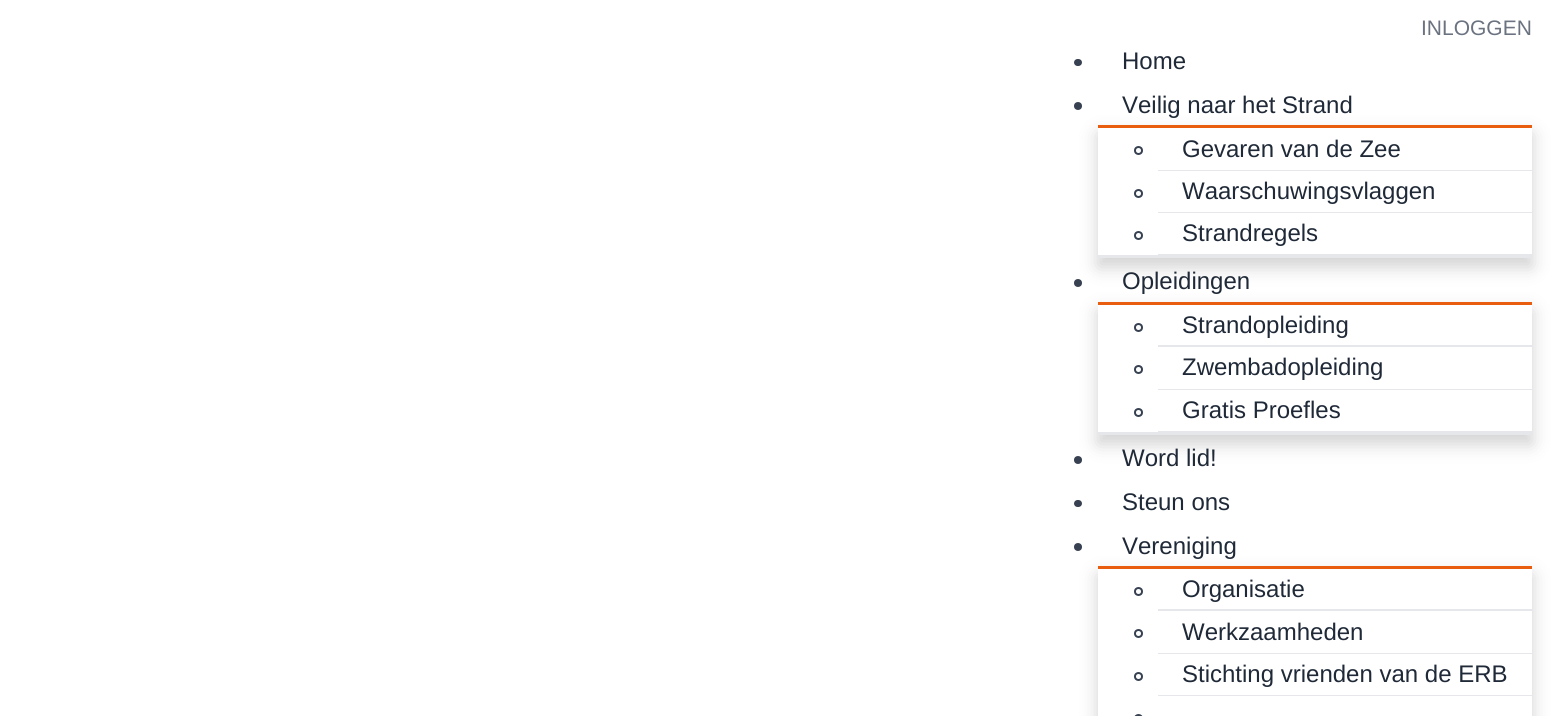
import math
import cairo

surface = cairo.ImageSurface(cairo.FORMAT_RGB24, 1561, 716)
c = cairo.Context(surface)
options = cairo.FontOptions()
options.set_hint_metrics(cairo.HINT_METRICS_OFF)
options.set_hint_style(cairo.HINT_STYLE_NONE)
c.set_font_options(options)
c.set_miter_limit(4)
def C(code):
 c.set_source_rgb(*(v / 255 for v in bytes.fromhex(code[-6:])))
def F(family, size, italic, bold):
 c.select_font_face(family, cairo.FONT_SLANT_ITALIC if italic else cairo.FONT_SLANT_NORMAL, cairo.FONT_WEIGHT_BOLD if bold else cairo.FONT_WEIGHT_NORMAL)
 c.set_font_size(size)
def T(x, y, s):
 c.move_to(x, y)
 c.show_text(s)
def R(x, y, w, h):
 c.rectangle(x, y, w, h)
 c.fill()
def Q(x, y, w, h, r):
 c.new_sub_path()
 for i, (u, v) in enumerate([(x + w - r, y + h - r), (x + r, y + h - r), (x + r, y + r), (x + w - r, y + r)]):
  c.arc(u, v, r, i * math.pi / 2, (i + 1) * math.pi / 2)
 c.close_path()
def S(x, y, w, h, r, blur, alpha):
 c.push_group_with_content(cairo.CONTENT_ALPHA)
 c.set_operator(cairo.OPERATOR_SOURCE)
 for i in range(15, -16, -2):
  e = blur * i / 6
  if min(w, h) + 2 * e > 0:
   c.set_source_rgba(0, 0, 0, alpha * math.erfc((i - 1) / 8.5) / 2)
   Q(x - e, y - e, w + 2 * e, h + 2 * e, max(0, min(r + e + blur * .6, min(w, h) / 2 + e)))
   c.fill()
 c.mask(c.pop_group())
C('ffffff')
c.paint()
F('Liberation Sans',21,0,0)
C('6b7280')
T(1421,35,'INLOGGEN')
C('374151')
Q(1074,59,8,7,3.5)
c.fill()
F('Liberation Sans',24,0,0)
C('1f2937')
T(1122,69,'Home')
c.save()
c.set_fill_rule(cairo.FILL_RULE_EVEN_ODD)
c.new_path()
c.move_to(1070,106)
c.line_to(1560,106)
c.line_to(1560,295)
c.line_to(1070,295)
c.close_path()
c.move_to(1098,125)
c.line_to(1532,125)
c.line_to(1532,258)
c.line_to(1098,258)
c.close_path()
c.clip()
C('000000')
S(1098,134,434,133,0,9,.18)
c.restore()
C('374151')
c.arc(1078,106,4,0,2 * math.pi)
c.fill()
C('1f2937')
T(1122,113,'Veilig naar het Strand')
C('e95d0e')
R(1098,125,434,3)
C('e5e7eb')
R(1098,255,434,3)
C('ffffff')
R(1531,128,1,42)
C('e5e7eb')
R(1158,170,374,1)
c.new_path()
c.arc(1138.5,150.5,3.5,0,2 * math.pi)
C('374151')
c.stroke()
C('1f2937')
T(1182,157,'Gevaren van de Zee')
C('ffffff')
R(1531,171,1,41)
C('e5e7eb')
R(1158,212,374,1)
c.new_path()
c.arc(1138.5,193.5,3.5,0,2 * math.pi)
C('374151')
c.stroke()
C('1f2937')
T(1182,199,'Waarschuwingsvlaggen')
C('ffffff')
R(1531,213,1,41)
C('e5e7eb')
R(1158,254,374,1)
c.new_path()
c.arc(1138.5,235.5,3.5,0,2 * math.pi)
C('374151')
c.stroke()
C('1f2937')
T(1182,241,'Strandregels')
c.save()
c.set_fill_rule(cairo.FILL_RULE_EVEN_ODD)
c.new_path()
c.move_to(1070,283)
c.line_to(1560,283)
c.line_to(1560,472)
c.line_to(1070,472)
c.close_path()
c.move_to(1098,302)
c.line_to(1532,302)
c.line_to(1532,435)
c.line_to(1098,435)
c.close_path()
c.clip()
C('000000')
S(1098,311,434,133,0,9,.18)
c.restore()
C('374151')
c.arc(1078,283,4,0,2 * math.pi)
c.fill()
C('1f2937')
T(1122,289,'Opleidingen')
C('e95d0e')
R(1098,302,434,3)
C('e5e7eb')
R(1098,432,434,3)
C('ffffff')
R(1531,305,1,40)
C('e5e7eb')
R(1158,345,374,2)
c.new_path()
c.arc(1138.5,327.5,3.5,0,2 * math.pi)
C('374151')
c.stroke()
C('1f2937')
T(1182,333,'Strandopleiding')
C('ffffff')
R(1531,347,1,42)
C('e5e7eb')
R(1158,389,374,1)
c.new_path()
c.arc(1138.5,369.5,3.5,0,2 * math.pi)
C('374151')
c.stroke()
C('1f2937')
T(1182,375,'Zwembadopleiding')
C('ffffff')
R(1531,390,1,41)
C('e5e7eb')
R(1158,431,374,1)
c.new_path()
c.arc(1138.5,412.5,3.5,0,2 * math.pi)
C('374151')
c.stroke()
C('1f2937')
T(1182,418,'Gratis Proefles')
C('374151')
c.new_path()
c.arc(1078,460,4,0,2 * math.pi)
c.fill()
C('1f2937')
T(1122,466,'Word lid!')
C('374151')
Q(1074,500,8,7,3.5)
c.fill()
C('1f2937')
T(1122,510,'Steun ons')
c.save()
c.set_fill_rule(cairo.FILL_RULE_EVEN_ODD)
c.new_path()
c.move_to(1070,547)
c.line_to(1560,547)
c.line_to(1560,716)
c.line_to(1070,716)
c.close_path()
c.move_to(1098,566)
c.line_to(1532,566)
c.line_to(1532,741)
c.line_to(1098,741)
c.close_path()
c.clip()
C('000000')
S(1098,575,434,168,0,9,.18)
c.restore()
C('374151')
c.arc(1078,547,4,0,2 * math.pi)
c.fill()
C('1f2937')
T(1122,554,'Vereniging')
C('e95d0e')
R(1098,566,434,3)
C('ffffff')
R(1531,569,1,40)
C('e5e7eb')
R(1158,609,374,2)
c.new_path()
c.arc(1138.5,591.5,3.5,0,2 * math.pi)
C('374151')
c.stroke()
C('1f2937')
T(1182,597,'Organisatie')
C('ffffff')
R(1531,611,1,42)
C('e5e7eb')
R(1158,653,374,1)
c.new_path()
c.arc(1138.5,633.5,3.5,0,2 * math.pi)
C('374151')
c.stroke()
C('1f2937')
T(1182,640,'Werkzaamheden')
C('ffffff')
R(1531,654,1,41)
C('e5e7eb')
R(1158,695,374,1)
c.new_path()
c.arc(1138.5,676.5,3.5,0,2 * math.pi)
C('374151')
c.stroke()
C('1f2937')
T(1182,682,'Stichting vrienden van de ERB')
C('ffffff')
R(1531,696,1,20)
c.new_path()
c.arc(1138.5,718.5,3.5,0,2 * math.pi)
C('374151')
c.stroke()
surface.write_to_png('o.png')
